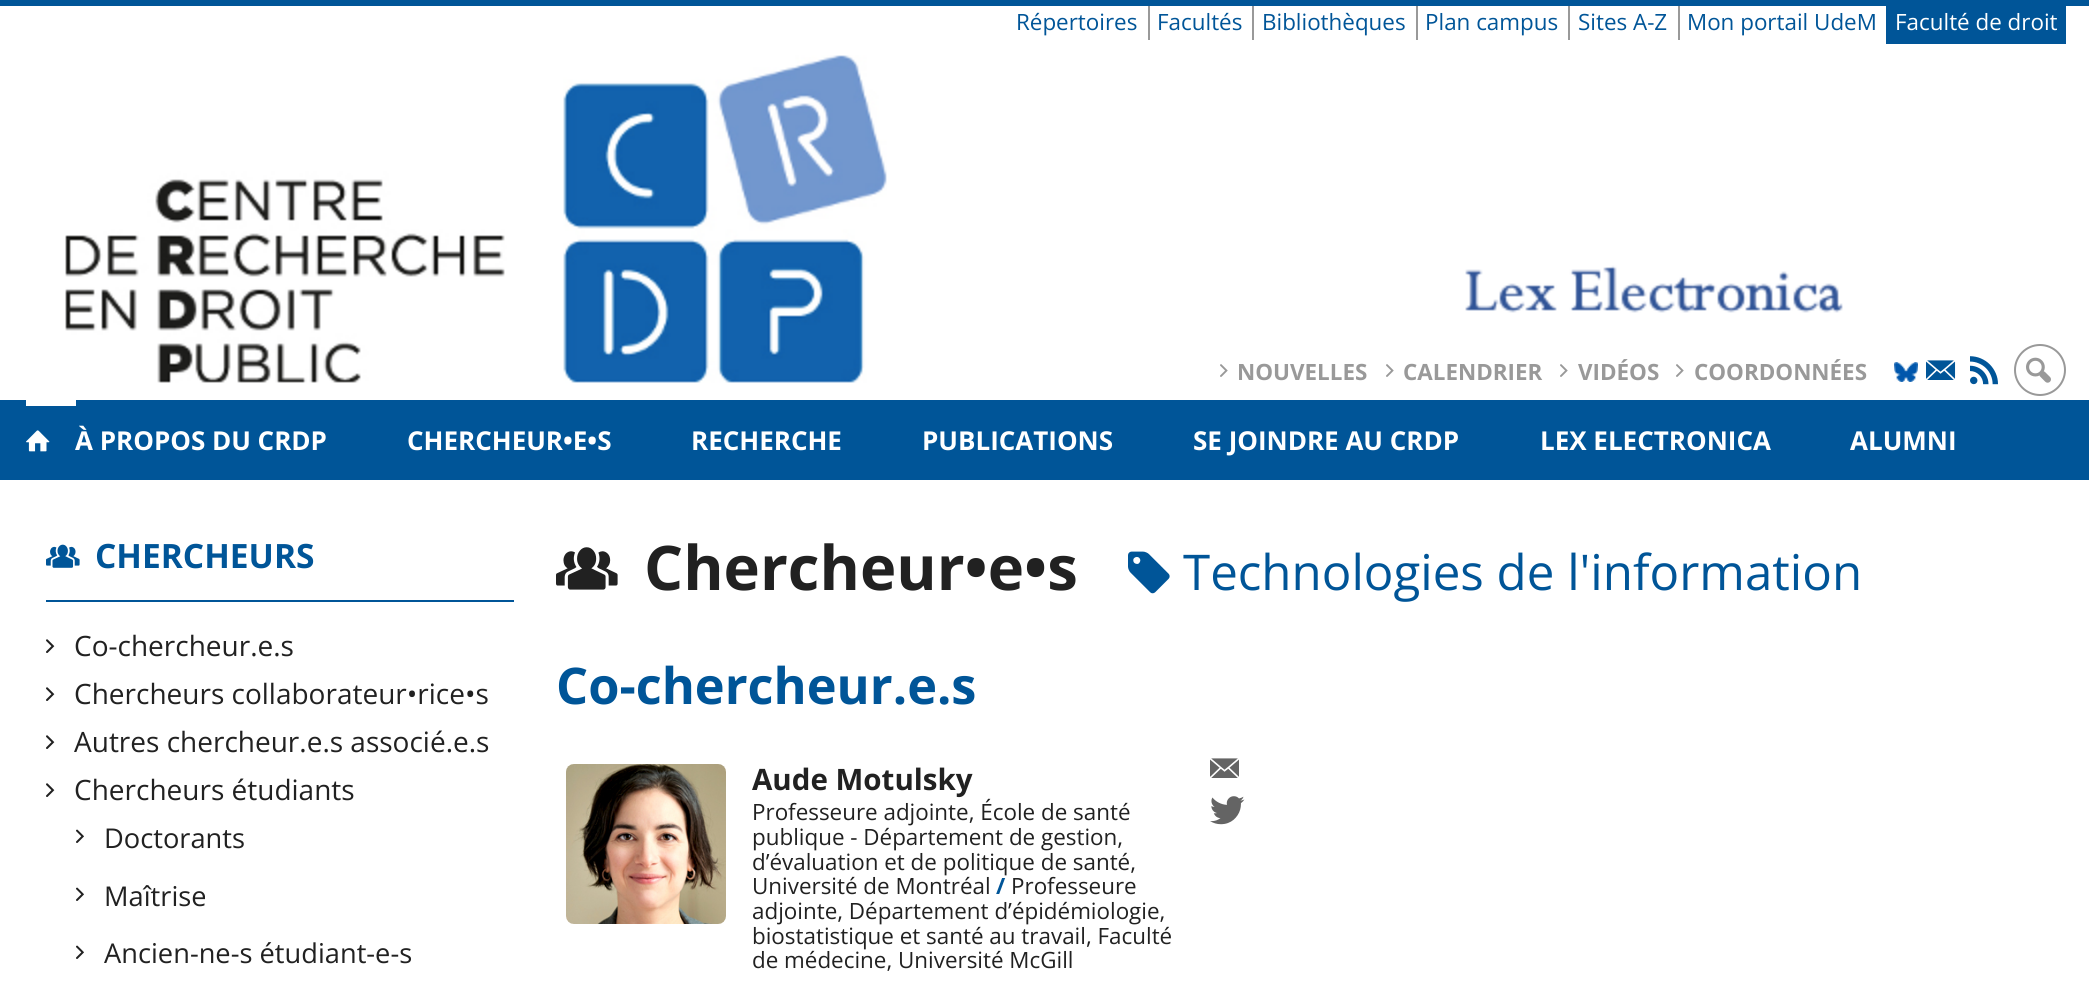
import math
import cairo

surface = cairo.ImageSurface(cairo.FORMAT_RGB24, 2089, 992)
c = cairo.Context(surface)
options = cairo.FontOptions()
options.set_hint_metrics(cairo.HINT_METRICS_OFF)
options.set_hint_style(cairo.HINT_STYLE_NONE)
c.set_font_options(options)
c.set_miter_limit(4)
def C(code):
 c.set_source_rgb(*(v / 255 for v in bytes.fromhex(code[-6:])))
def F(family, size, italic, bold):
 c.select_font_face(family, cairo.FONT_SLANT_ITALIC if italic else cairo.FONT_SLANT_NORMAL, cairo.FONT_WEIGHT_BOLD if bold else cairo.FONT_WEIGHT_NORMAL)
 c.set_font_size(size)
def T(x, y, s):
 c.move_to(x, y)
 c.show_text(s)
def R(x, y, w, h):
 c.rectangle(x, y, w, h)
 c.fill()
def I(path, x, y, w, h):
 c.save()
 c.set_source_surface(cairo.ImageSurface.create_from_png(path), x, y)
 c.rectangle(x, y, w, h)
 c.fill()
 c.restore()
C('ffffff')
c.paint()
C('005598')
R(0,0,2089,6)
F('Open Sans',22.4,0,0)
T(1016,30,'Répertoires')
C('999999')
R(1148,6,2,34)
C('005598')
T(1157,30,'Facultés')
C('999999')
R(1252,6,2,34)
C('005598')
T(1262,30,'Bibliothèques')
C('999999')
R(1416,6,2,34)
C('005598')
T(1425,30,'Plan campus')
C('999999')
R(1568,6,2,34)
C('005598')
T(1578,30,'Sites A-Z')
C('999999')
R(1678,6,2,34)
C('005598')
T(1687,30,'Mon portail UdeM')
R(1886,6,180,38)
C('ffffff')
T(1895,30,'Faculté de droit')
C('005598')
R(0,400,2089,80)
I('1.png',26,55,1834,351)
I('2.png',1220,364,8,13)
F('Open Sans',22.4,0,1)
C('999999')
T(1237,380,'NOUVELLES')
I('2.png',1386,364,8,13)
T(1403,380,'CALENDRIER')
I('2.png',1560,364,8,13)
T(1578,380,'VIDÉOS')
I('2.png',1676,364,8,13)
T(1694,380,'COORDONNÉES')
I('3.png',1894,362,24,20)
I('4.png',1926,360,30,20)
I('5.png',1970,356,28,29)
c.arc(2040,370,25,0,2 * math.pi)
c.stroke()
I('6.png',2026,357,25,26)
I('7.png',26,430,24,22)
C('005598')
R(76,400,1784,6)
F('Open Sans',26,0,1)
C('ffffff')
T(75,450,'À PROPOS DU CRDP')
T(407,450,'CHERCHEUR•E•S')
T(691,450,'RECHERCHE')
T(922,450,'PUBLICATIONS')
T(1193,450,'SE JOINDRE AU CRDP')
T(1540,450,'LEX ELECTRONICA')
T(1850,450,'ALUMNI')
C('005598')
R(46,600,468,2)
I('8.png',46,544,34,24)
F('Open Sans',33.5,0,1)
T(95,568,'CHERCHEURS')
I('9.png',46,639,9,14)
F('Open Sans',28,0,0)
C('212121')
T(74,656,'Co-chercheur.e.s')
I('9.png',46,687,9,14)
T(74,704,'Chercheurs collaborateur•rice•s')
I('9.png',46,735,9,14)
T(74,752,'Autres chercheur.e.s associé.e.s')
I('9.png',46,783,9,14)
T(74,800,'Chercheurs étudiants')
I('10.png',76,829,8,14)
F('Open Sans',27.25,0,0)
T(104,848,'Doctorants')
I('10.png',76,887,8,14)
T(104,906,'Maîtrise')
I('10.png',76,945,8,14)
T(104,963,'Ancien-ne-s étudiant-e-s')
I('11.png',556,547,62,43)
F('Open Sans',61.5,0,1)
T(644,590,'Chercheur•e•s')
I('12.png',1128,551,42,43)
F('Open Sans',49.25,0,0)
C('005598')
T(1183,590,'Technologies de l\'information')
F('Open Sans',50.5,0,1)
T(556,704,'Co-chercheur.e.s')
I('13.png',566,764,160,160)
F('Open Sans',29.5,0,1)
C('212121')
T(752,790,'Aude Motulsky')
F('Open Sans',22.4,0,0)
T(752,820,'Professeure adjointe, École de santé')
T(752,845,'publique - Département de gestion,')
T(752,870,'d’évaluation et de politique de santé,')
T(752,894,'Université de Montréal')
F('Open Sans',22.4,0,1)
C('005598')
T(996,894,'/')
F('Open Sans',22.4,0,0)
C('212121')
T(1011,894,'Professeure')
T(752,919,'adjointe, Département d’épidémiologie,')
T(752,944,'biostatistique et santé au travail, Faculté')
T(752,968,'de médecine, Université McGill')
I('14.png',1210,758,29,20)
I('15.png',1210,796,35,29)
surface.write_to_png('o.png')
